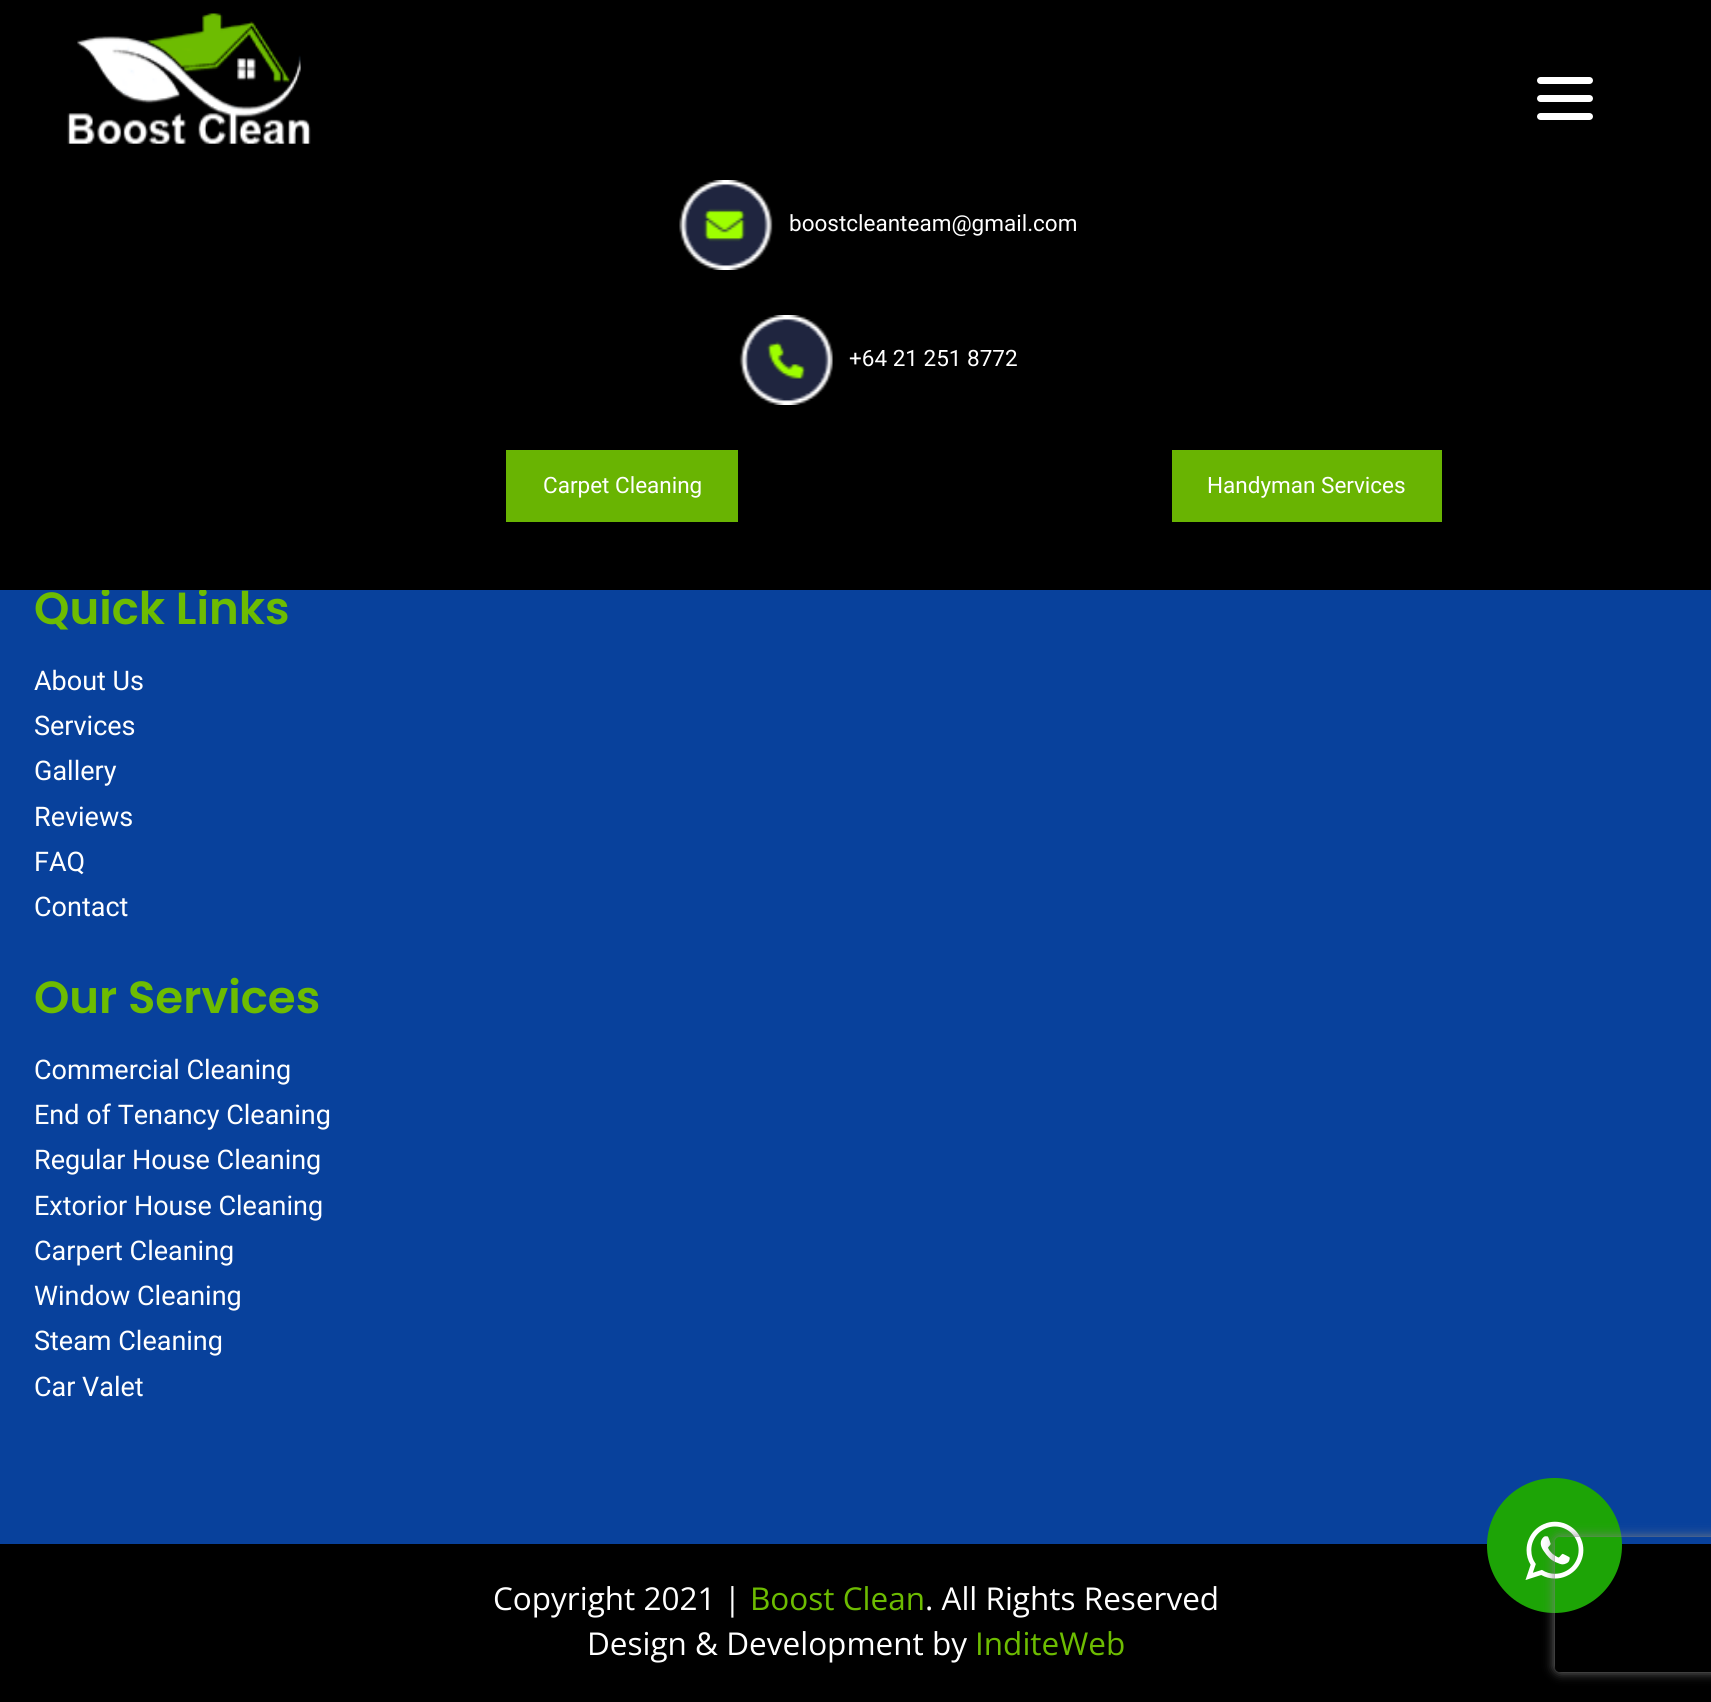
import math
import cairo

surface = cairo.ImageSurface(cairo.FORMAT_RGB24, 1711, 1702)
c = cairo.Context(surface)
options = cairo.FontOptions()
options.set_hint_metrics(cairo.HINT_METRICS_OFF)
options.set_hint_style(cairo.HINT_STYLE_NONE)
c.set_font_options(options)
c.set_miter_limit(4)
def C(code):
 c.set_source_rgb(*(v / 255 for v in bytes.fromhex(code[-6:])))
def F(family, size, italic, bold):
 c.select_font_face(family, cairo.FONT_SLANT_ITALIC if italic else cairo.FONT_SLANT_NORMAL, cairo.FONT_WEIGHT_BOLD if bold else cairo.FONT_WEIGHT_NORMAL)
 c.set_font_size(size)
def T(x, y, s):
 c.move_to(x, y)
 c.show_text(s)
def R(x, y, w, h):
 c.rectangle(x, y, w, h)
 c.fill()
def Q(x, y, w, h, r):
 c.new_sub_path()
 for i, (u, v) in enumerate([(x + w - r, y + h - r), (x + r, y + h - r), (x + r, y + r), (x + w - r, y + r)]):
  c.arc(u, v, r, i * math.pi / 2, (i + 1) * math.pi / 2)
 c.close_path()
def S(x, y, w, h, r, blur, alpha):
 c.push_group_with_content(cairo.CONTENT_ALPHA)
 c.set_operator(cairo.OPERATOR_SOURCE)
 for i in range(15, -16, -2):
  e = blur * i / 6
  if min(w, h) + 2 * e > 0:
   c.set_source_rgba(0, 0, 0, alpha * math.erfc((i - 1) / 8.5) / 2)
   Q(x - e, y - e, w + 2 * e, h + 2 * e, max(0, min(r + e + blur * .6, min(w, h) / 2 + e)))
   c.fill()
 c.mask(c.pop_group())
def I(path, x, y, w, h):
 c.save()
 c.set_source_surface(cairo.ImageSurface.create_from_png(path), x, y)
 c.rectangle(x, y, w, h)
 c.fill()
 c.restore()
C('08419c')
c.paint()
F('Poppins SemiBold',45,0,0)
C('6dbc01')
T(34,624,'Quick Links')
C('000000')
R(0,0,1711,590)
C('ffffff')
Q(1537,95,56,7,3.5)
c.fill()
Q(1537,77,56,7,3.5)
c.fill()
Q(1537,113,56,7,3.5)
c.fill()
I('1.png',67,13,244,131)
I('2.png',679,180,94,90)
F('Roboto',22.5,0,0)
T(789,231,'boostcleanteam@gmail.com')
I('3.png',739,315,94,90)
T(849,366,'+64 21 251 8772')
C('69b402')
R(506,450,232,72)
C('ffffff')
T(543,493,'Carpet Cleaning')
C('69b402')
R(1172,450,270,72)
C('ffffff')
T(1207,493,'Handyman Services')
F('Roboto',27,0,0)
T(34,690,'About Us')
T(34,735,'Services')
T(34,780,'Gallery')
T(34,826,'Reviews')
T(34,871,'FAQ')
T(34,916,'Contact')
F('Poppins SemiBold',45,0,0)
C('6dbc01')
T(34,1013,'Our Services')
F('Roboto',27,0,0)
C('ffffff')
T(34,1079,'Commercial Cleaning')
T(34,1124,'End of Tenancy Cleaning')
T(34,1169,'Regular House Cleaning')
T(34,1215,'Extorior House Cleaning')
T(34,1260,'Carpert Cleaning')
T(34,1305,'Window Cleaning')
T(34,1350,'Steam Cleaning')
T(34,1396,'Car Valet')
C('000000')
R(0,1544,1711,158)
C('1da406')
c.new_path()
c.arc(1554.5,1545.5,67.5,0,2 * math.pi)
c.fill()
I('4.png',1525,1521,59,59)
F('Open Sans',31.5,0,0)
C('ffffff')
T(493,1610,'Copyright 2021 |')
C('6dbc01')
T(750,1610,'Boost Clean')
C('ffffff')
T(925,1610,'. All Rights Reserved')
T(587,1655,'Design & Development by')
C('6dbc01')
T(975,1655,'InditeWeb')
c.save()
c.set_fill_rule(cairo.FILL_RULE_EVEN_ODD)
c.new_path()
c.move_to(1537,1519)
c.line_to(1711,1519)
c.line_to(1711,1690)
c.line_to(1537,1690)
c.close_path()
c.move_to(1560,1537)
c.line_to(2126,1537)
c.curve_to(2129,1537,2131,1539,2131,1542)
c.line_to(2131,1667)
c.curve_to(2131,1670,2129,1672,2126,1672)
c.line_to(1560,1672)
c.curve_to(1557,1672,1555,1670,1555,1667)
c.line_to(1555,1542)
c.curve_to(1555,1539,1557,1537,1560,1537)
c.close_path()
c.clip()
C('808080')
S(1555,1537,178,135,5,5.5,1)
c.restore()
surface.write_to_png('o.png')
